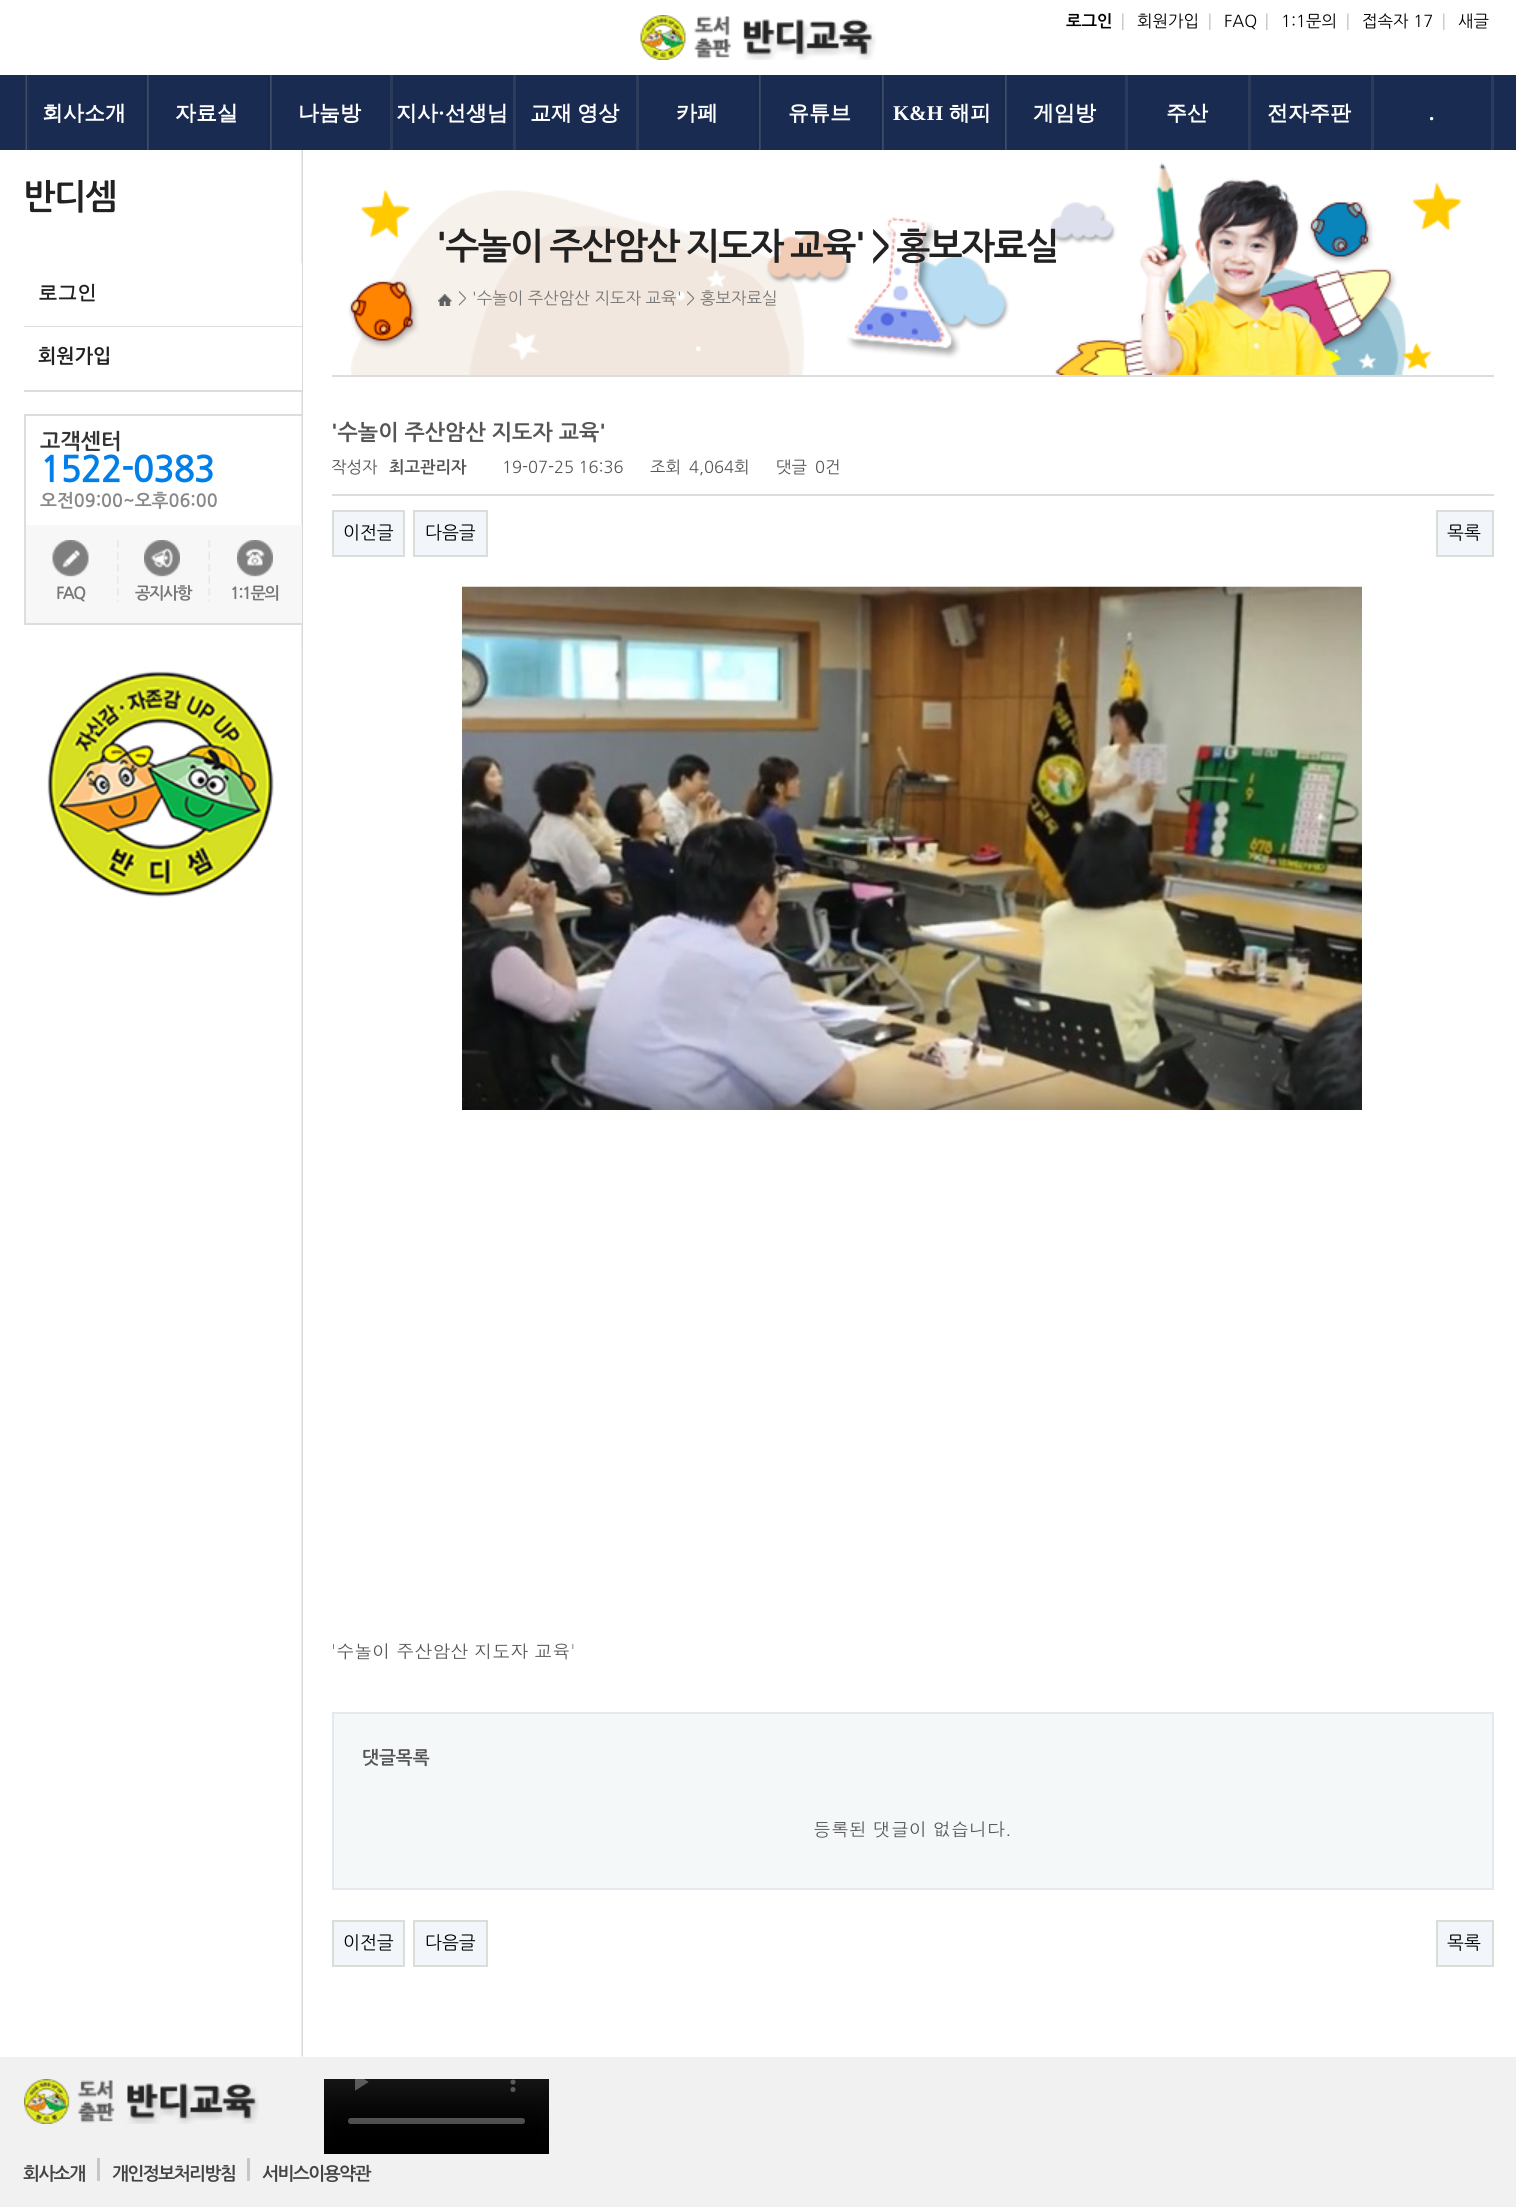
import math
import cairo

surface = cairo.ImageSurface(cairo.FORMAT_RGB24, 1516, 2207)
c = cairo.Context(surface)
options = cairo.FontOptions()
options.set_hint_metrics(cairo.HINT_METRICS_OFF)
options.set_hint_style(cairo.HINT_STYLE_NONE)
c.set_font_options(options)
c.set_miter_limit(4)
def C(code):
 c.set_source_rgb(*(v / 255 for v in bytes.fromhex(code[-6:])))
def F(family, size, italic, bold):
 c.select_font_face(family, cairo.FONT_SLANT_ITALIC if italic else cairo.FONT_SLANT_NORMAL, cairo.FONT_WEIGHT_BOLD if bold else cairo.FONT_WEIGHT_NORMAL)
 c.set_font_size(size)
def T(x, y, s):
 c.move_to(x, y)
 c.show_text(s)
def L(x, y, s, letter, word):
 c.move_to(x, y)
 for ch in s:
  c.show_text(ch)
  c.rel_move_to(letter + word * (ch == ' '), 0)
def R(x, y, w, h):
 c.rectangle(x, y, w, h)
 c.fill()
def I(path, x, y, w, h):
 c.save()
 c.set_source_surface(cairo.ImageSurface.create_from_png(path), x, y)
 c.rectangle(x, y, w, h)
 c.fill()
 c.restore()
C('ffffff')
c.paint()
I('1.png',640,15,236,45)
F('NanumGothic',16.5,0,1)
C('000000')
T(1066,27,'로그인')
I('2.png',1122,13,2,17)
F('NanumGothic',16.5,0,0)
T(1137,27,'회원가입')
I('2.png',1209,13,2,17)
T(1224,27,'FAQ')
I('2.png',1266,13,2,17)
T(1281,27,'1:1문의')
I('2.png',1347,13,2,17)
T(1362,27,'접속자 17')
I('3.png',1443,13,2,17)
T(1458,27,'새글')
C('192b51')
R(0,75,1516,75)
C('2d3b5a')
R(1491,75,3,75)
I('4.png',24,75,5,75)
F('WenQuanYi Zen Hei',21,0,1)
C('ffffff')
T(42,120,'회사소개')
I('5.png',145,75,4,75)
T(175,120,'자료실')
I('6.png',268,75,4,75)
T(298,120,'나눔방')
C('2d3b5a')
R(390,75,3,75)
C('ffffff')
T(396,120,'지사')
F('Liberation Serif',21,0,1)
T(438,120,'·')
F('WenQuanYi Zen Hei',21,0,1)
T(445,120,'선생님')
C('2e3c5b')
R(513,75,3,75)
C('ffffff')
L(530,120,'교재 영상',0,-1)
C('2e3c5b')
R(636,75,3,75)
C('ffffff')
T(676,120,'카페')
I('7.png',757,75,4,75)
T(788,120,'유튜브')
I('5.png',880,75,4,75)
F('Liberation Serif',21,0,1)
T(893,120,'K&H')
F('WenQuanYi Zen Hei',21,0,1)
T(949,120,'해피')
I('5.png',1003,75,4,75)
T(1033,120,'게임방')
C('2d3b5a')
R(1125,75,3,75)
C('ffffff')
T(1166,120,'주산')
C('2d3b5a')
R(1248,75,3,75)
C('ffffff')
T(1267,120,'전자주판')
C('2d3b5a')
R(1371,75,3,75)
F('Liberation Serif',21,0,1)
C('ffffff')
T(1429,120,'.')
I('8.png',301,150,2,1907)
F('NanumGothic',34.5,0,1)
C('222222')
L(23,209,'반디셈',-1.5,0)
C('ffffff')
R(301,263,1,63)
C('dddddd')
R(24,326,278,1)
F('WenQuanYi Zen Hei',19.5,0,1)
C('222222')
T(38,299,'로그인')
C('ffffff')
R(301,327,1,63)
C('dddddd')
R(24,390,278,2)
F('NanumGothic',19.5,0,1)
C('222222')
T(38,363,'회원가입')
C('dddddd')
R(24,414,278,2)
R(24,623,278,2)
R(24,414,2,210)
F('NanumGothic',21.6,0,1)
C('333333')
T(40,449,'고객센터')
F('NanumGothic',36,0,1)
C('007fea')
L(40,482,'1522-0383',-1.5,0)
F('NanumGothic',18,0,1)
C('888888')
T(40,507,'오전09:00~오후06:00')
C('f7f7f7')
R(26,525,276,98)
I('9.png',52,540,37,37)
F('NanumGothic',16.5,0,1)
C('777777')
L(56,599,'FAQ',-1.5,0)
I('10.png',144,540,36,37)
I('11.png',117,540,2,62)
L(135,599,'공지사항',-1.5,0)
I('12.png',237,540,36,37)
I('13.png',208,540,2,62)
L(230,599,'1:1문의',-1.5,0)
I('14.png',47,647,255,277)
C('dddddd')
R(332,375,1162,2)
I('15.png',348,163,1114,212)
F('NanumGothic',36,0,1)
C('222222')
L(436,259,'\'수놀이 주산암산 지도자 교육\' > 홍보자료실',-1.5,-1.5)
I('16.png',438,294,14,12)
F('NanumGothic',16.5,0,0)
C('777777')
T(458,304,'> \'수놀이 주산암산 지도자 교육\' > 홍보자료실')
F('NanumGothic',21.6,0,1)
C('555555')
T(331,440,'\'수놀이 주산암산 지도자 교육\'')
C('dddddd')
R(332,494,1162,2)
F('NanumGothic',16.5,0,0)
C('555555')
T(331,473,'작성자')
F('NanumGothic',16.5,0,1)
T(389,473,'최고관리자')
F('NanumGothic',16.5,0,0)
T(502,473,'19-07-25 16:36')
T(650,473,'조회')
T(689,473,'4,064회')
T(776,473,'댓글')
T(815,473,'0건')
C('f2f5f9')
c.rectangle(333,511,71,45)
c.fill_preserve()
C('d9ded9')
c.stroke()
F('NanumGothic',18,0,0)
C('000000')
T(343,539,'이전글')
C('f2f5f9')
c.rectangle(414,511,73,45)
c.fill_preserve()
C('d9ded9')
c.stroke()
C('000000')
T(425,539,'다음글')
C('f2f5f9')
c.rectangle(1437,511,56,45)
c.fill_preserve()
C('d9ded9')
c.stroke()
C('000000')
T(1447,539,'목록')
I('17.png',462,586,900,524)
F('Dotum',18,0,0)
C('555555')
T(331,1658,'\'수놀이 주산암산 지도자 교육\'')
C('f5f8f9')
c.rectangle(333,1713,1160,176)
c.fill_preserve()
C('e5e8ec')
c.stroke()
F('NanumGothic',18,0,1)
C('555555')
T(362,1764,'댓글목록')
F('Dotum',18,0,0)
T(813,1836,'등록된 댓글이 없습니다.')
C('f2f5f9')
c.rectangle(333,1921,71,45)
c.fill_preserve()
C('d9ded9')
c.stroke()
F('NanumGothic',18,0,0)
C('000000')
T(343,1949,'이전글')
C('f2f5f9')
c.rectangle(414,1921,73,45)
c.fill_preserve()
C('d9ded9')
c.stroke()
C('000000')
T(425,1949,'다음글')
C('f2f5f9')
c.rectangle(1437,1921,56,45)
c.fill_preserve()
C('d9ded9')
c.stroke()
C('000000')
T(1447,1949,'목록')
C('f1f1f1')
R(0,2057,1516,150)
I('18.png',24,2079,235,45)
I('19.png',324,2079,225,75)
F('NanumGothic',18,0,1)
C('444444')
L(23,2180,'회사소개',-1.5,0)
C('c7c7c7')
R(97,2158,3,23)
C('444444')
L(112,2180,'개인정보처리방침',-1.5,0)
C('c7c7c7')
R(247,2158,3,23)
C('444444')
L(262,2180,'서비스이용약관',-1.5,0)
surface.write_to_png('o.png')
